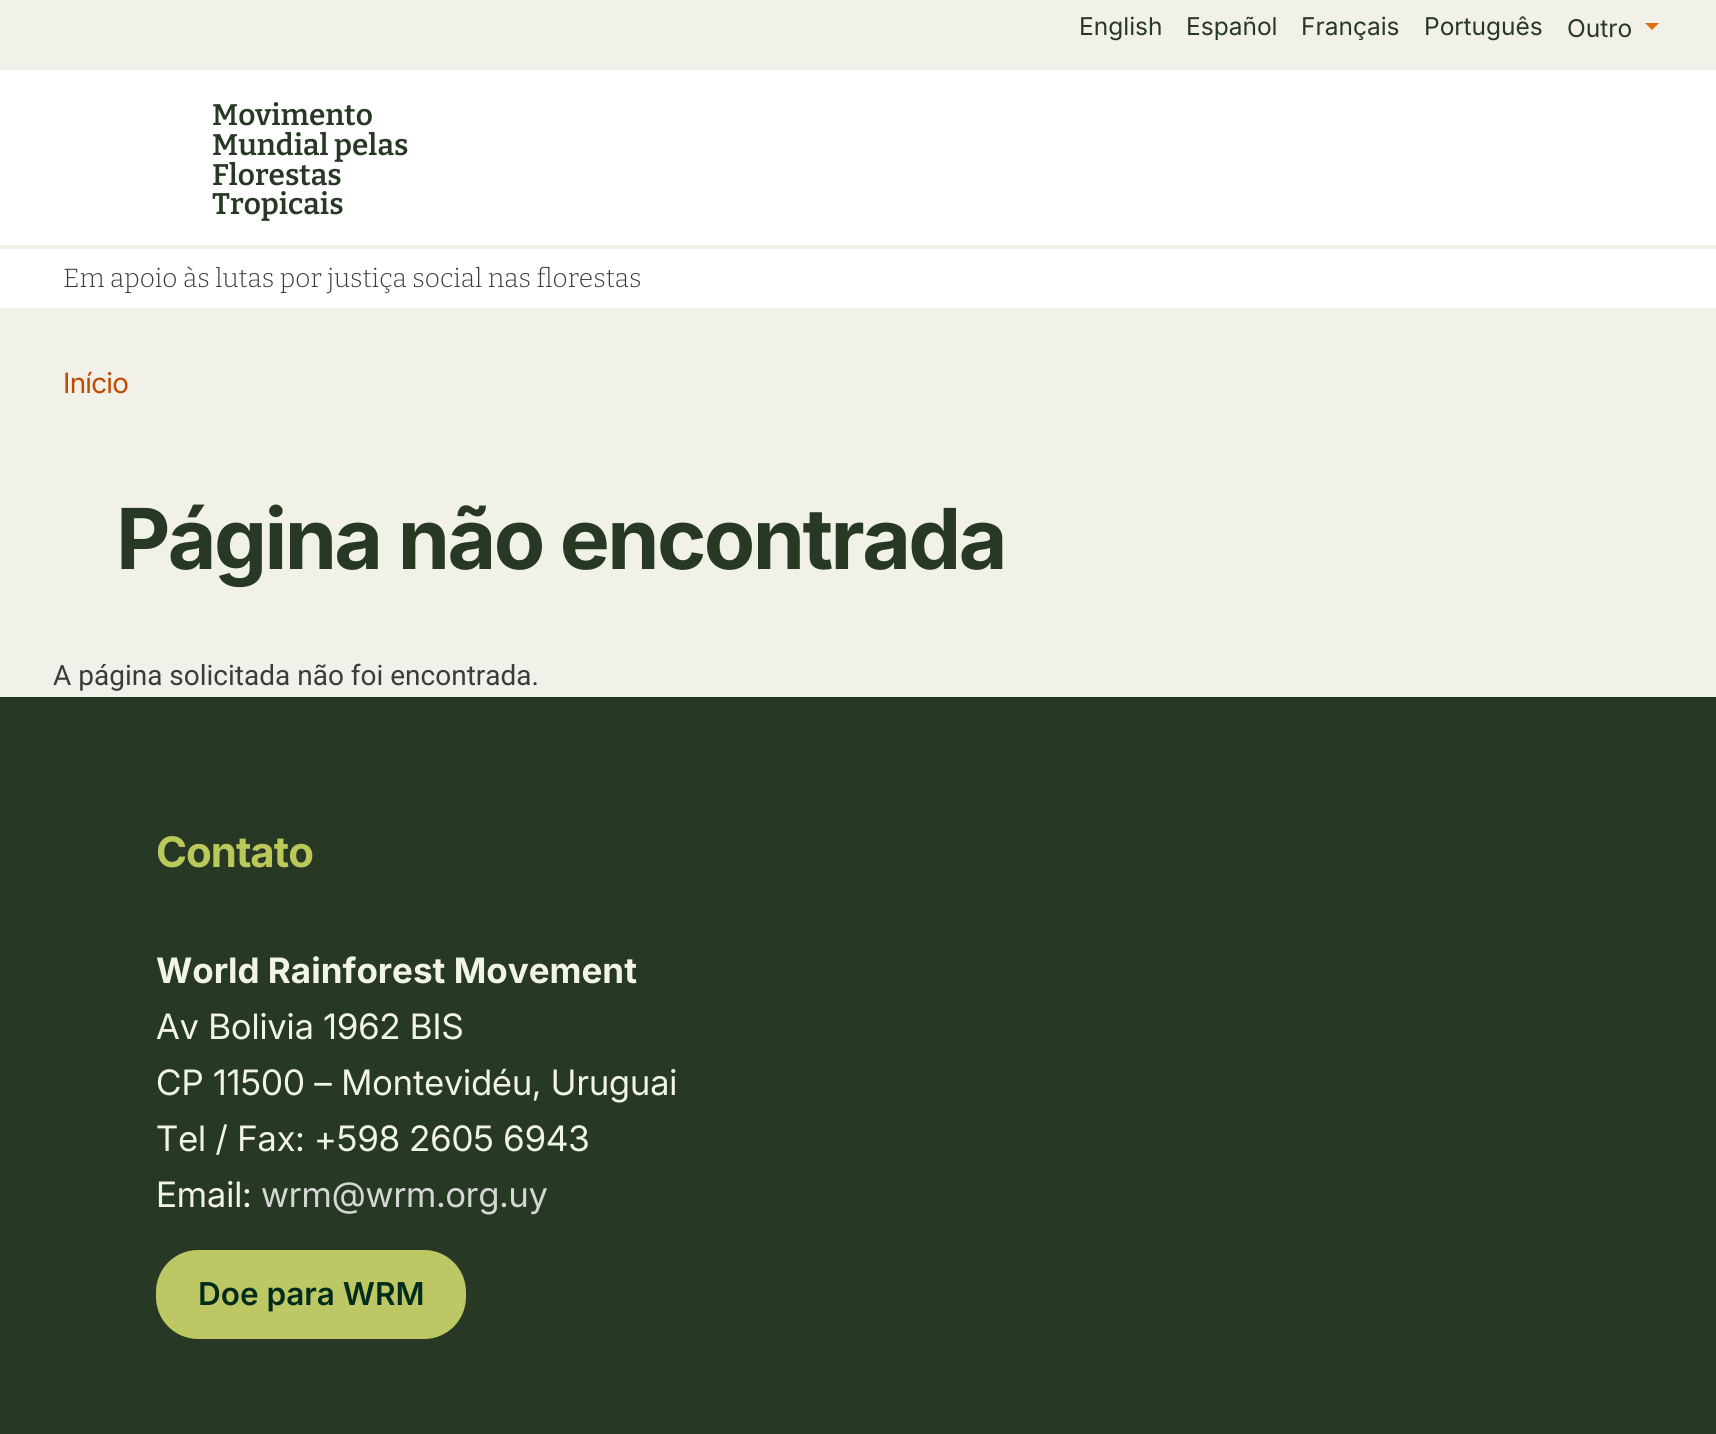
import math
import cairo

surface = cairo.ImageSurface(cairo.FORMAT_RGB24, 1716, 1434)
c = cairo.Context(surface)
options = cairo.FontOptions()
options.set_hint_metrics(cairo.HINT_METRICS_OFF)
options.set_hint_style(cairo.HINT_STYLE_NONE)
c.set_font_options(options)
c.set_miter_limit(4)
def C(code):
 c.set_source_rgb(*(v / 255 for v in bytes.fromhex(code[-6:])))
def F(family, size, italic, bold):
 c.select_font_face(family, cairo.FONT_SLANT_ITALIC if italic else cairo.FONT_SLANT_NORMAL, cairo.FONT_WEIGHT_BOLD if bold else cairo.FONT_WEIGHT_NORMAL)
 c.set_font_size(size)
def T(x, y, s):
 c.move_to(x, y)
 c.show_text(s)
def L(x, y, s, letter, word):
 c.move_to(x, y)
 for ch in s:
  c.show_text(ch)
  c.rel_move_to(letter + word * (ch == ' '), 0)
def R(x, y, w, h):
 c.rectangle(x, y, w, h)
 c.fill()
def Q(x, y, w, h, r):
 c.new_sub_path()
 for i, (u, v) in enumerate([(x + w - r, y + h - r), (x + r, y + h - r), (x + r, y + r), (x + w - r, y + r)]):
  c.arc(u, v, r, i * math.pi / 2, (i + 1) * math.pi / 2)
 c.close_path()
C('ffffff')
c.paint()
C('f1f1e9')
R(0,0,1716,70)
F('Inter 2',24.5,0,0)
C('273924')
T(1079,35,'English')
T(1186,35,'Español')
T(1301,35,'Français')
T(1424,35,'Português')
T(1567,37,'Outro')
C('e56a0e')
c.new_path()
c.move_to(1645,23)
c.line_to(1659,23)
c.line_to(1652,30)
c.close_path()
c.fill()
F('Bitter SemiBold',29.75,0,0)
C('273924')
T(212,125,'Movimento')
T(212,155,'Mundial pelas')
T(212,185,'Florestas')
T(212,214,'Tropicais')
C('f1f1e9')
R(0,245,1716,4)
F('Bitter Light',26.25,0,0)
C('3b3b3b')
T(63,287,'Em apoio às lutas por justiça social nas florestas')
C('f1f1e9')
R(0,308,1716,389)
F('Inter',28,0,0)
C('c24a00')
L(63,393,'Início',-.75,0)
F('Inter',84,0,1)
C('273924')
L(116,569,'Página não encontrada',-2.6,0)
F('Roboto',28,0,0)
C('3b3b3b')
T(53,685,'A página solicitada não foi encontrada.')
C('273924')
R(0,697,1716,737)
F('Inter',42,0,1)
C('bbc85a')
L(156,867,'Contato',-1,0)
F('Inter',35,0,1)
C('f2f4e6')
T(156,983,'World Rainforest Movement')
F('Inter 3',35,0,0)
T(156,1039,'Av Bolivia 1962 BIS')
T(156,1095,'CP 11500 – Montevidéu, Uruguai')
T(156,1151,'Tel / Fax: +598 2605 6943')
T(156,1207,'Email:')
C('d4d7d3')
T(261,1207,'wrm@wrm.org.uy')
C('bdc865')
Q(156,1250,310,89,42)
c.fill()
F('Inter SemiBold',31.5,0,0)
C('022b1c')
T(198,1305,'Doe para WRM')
surface.write_to_png('o.png')
